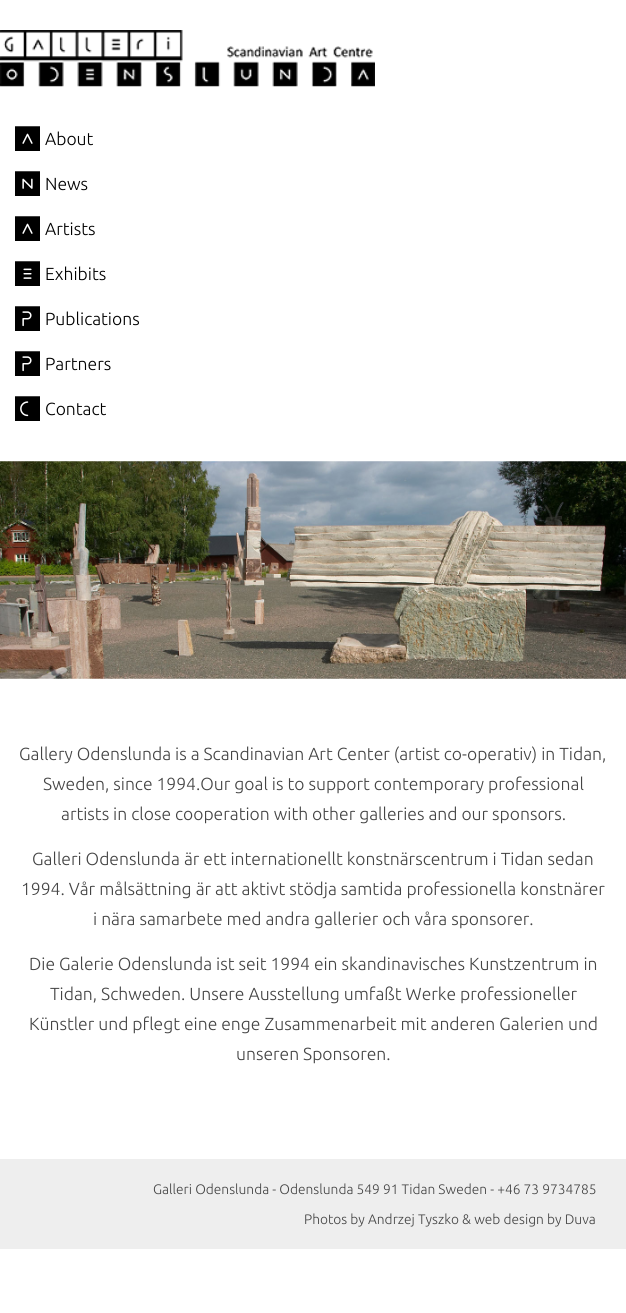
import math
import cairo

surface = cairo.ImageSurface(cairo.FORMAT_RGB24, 626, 1313)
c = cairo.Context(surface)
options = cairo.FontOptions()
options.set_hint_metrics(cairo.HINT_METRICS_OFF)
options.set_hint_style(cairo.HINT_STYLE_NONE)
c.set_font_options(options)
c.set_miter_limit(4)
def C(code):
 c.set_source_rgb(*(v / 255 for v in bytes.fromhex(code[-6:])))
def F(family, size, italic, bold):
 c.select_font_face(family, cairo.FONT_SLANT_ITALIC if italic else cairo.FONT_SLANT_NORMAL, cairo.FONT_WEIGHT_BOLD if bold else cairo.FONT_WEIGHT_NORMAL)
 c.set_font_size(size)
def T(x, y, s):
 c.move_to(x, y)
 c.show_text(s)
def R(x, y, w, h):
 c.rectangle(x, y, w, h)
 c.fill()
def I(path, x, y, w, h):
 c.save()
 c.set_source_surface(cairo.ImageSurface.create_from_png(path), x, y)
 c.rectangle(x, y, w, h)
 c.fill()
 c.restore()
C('ffffff')
c.paint()
I('1.png',0,30,375,57)
I('2.png',15,126,25,25)
F('Ubuntu Light',17.5,0,0)
C('000000')
T(45,145,'About')
I('3.png',15,171,25,25)
T(45,190,'News')
I('2.png',15,216,25,25)
T(45,235,'Artists')
I('4.png',15,261,25,25)
T(45,280,'Exhibits')
I('5.png',15,306,25,25)
T(45,325,'Publications')
I('5.png',15,351,25,25)
T(45,370,'Partners')
I('6.png',15,396,25,25)
T(45,415,'Contact')
I('7.png',0,461,626,218)
C('444444')
T(19,760,'Gallery Odenslunda is a Scandinavian Art Center (artist co-operativ) in Tidan,')
T(43,790,'Sweden, since 1994.Our goal is to support contemporary professional')
T(61,820,'artists in close cooperation with other galleries and our sponsors.')
T(32,865,'Galleri Odenslunda är ett internationellt konstnärscentrum i Tidan sedan')
T(21,895,'1994. Vår målsättning är att aktivt stödja samtida professionella konstnärer')
T(93,925,'i nära samarbete med andra gallerier och våra sponsorer.')
T(29,970,'Die Galerie Odenslunda ist seit 1994 ein skandinavisches Kunstzentrum in')
T(50,1000,'Tidan, Schweden. Unsere Ausstellung umfaßt Werke professioneller')
T(29,1030,'Künstler und pflegt eine enge Zusammenarbeit mit anderen Galerien und')
T(236,1060,'unseren Sponsoren.')
C('eeeeee')
R(0,1159,626,90)
F('Ubuntu Light',13.75,0,0)
C('444444')
T(153,1194,'Galleri Odenslunda - Odenslunda 549 91 Tidan Sweden - +46 73 9734785')
T(304,1224,'Photos by Andrzej Tyszko & web design by Duva')
surface.write_to_png('o.png')
